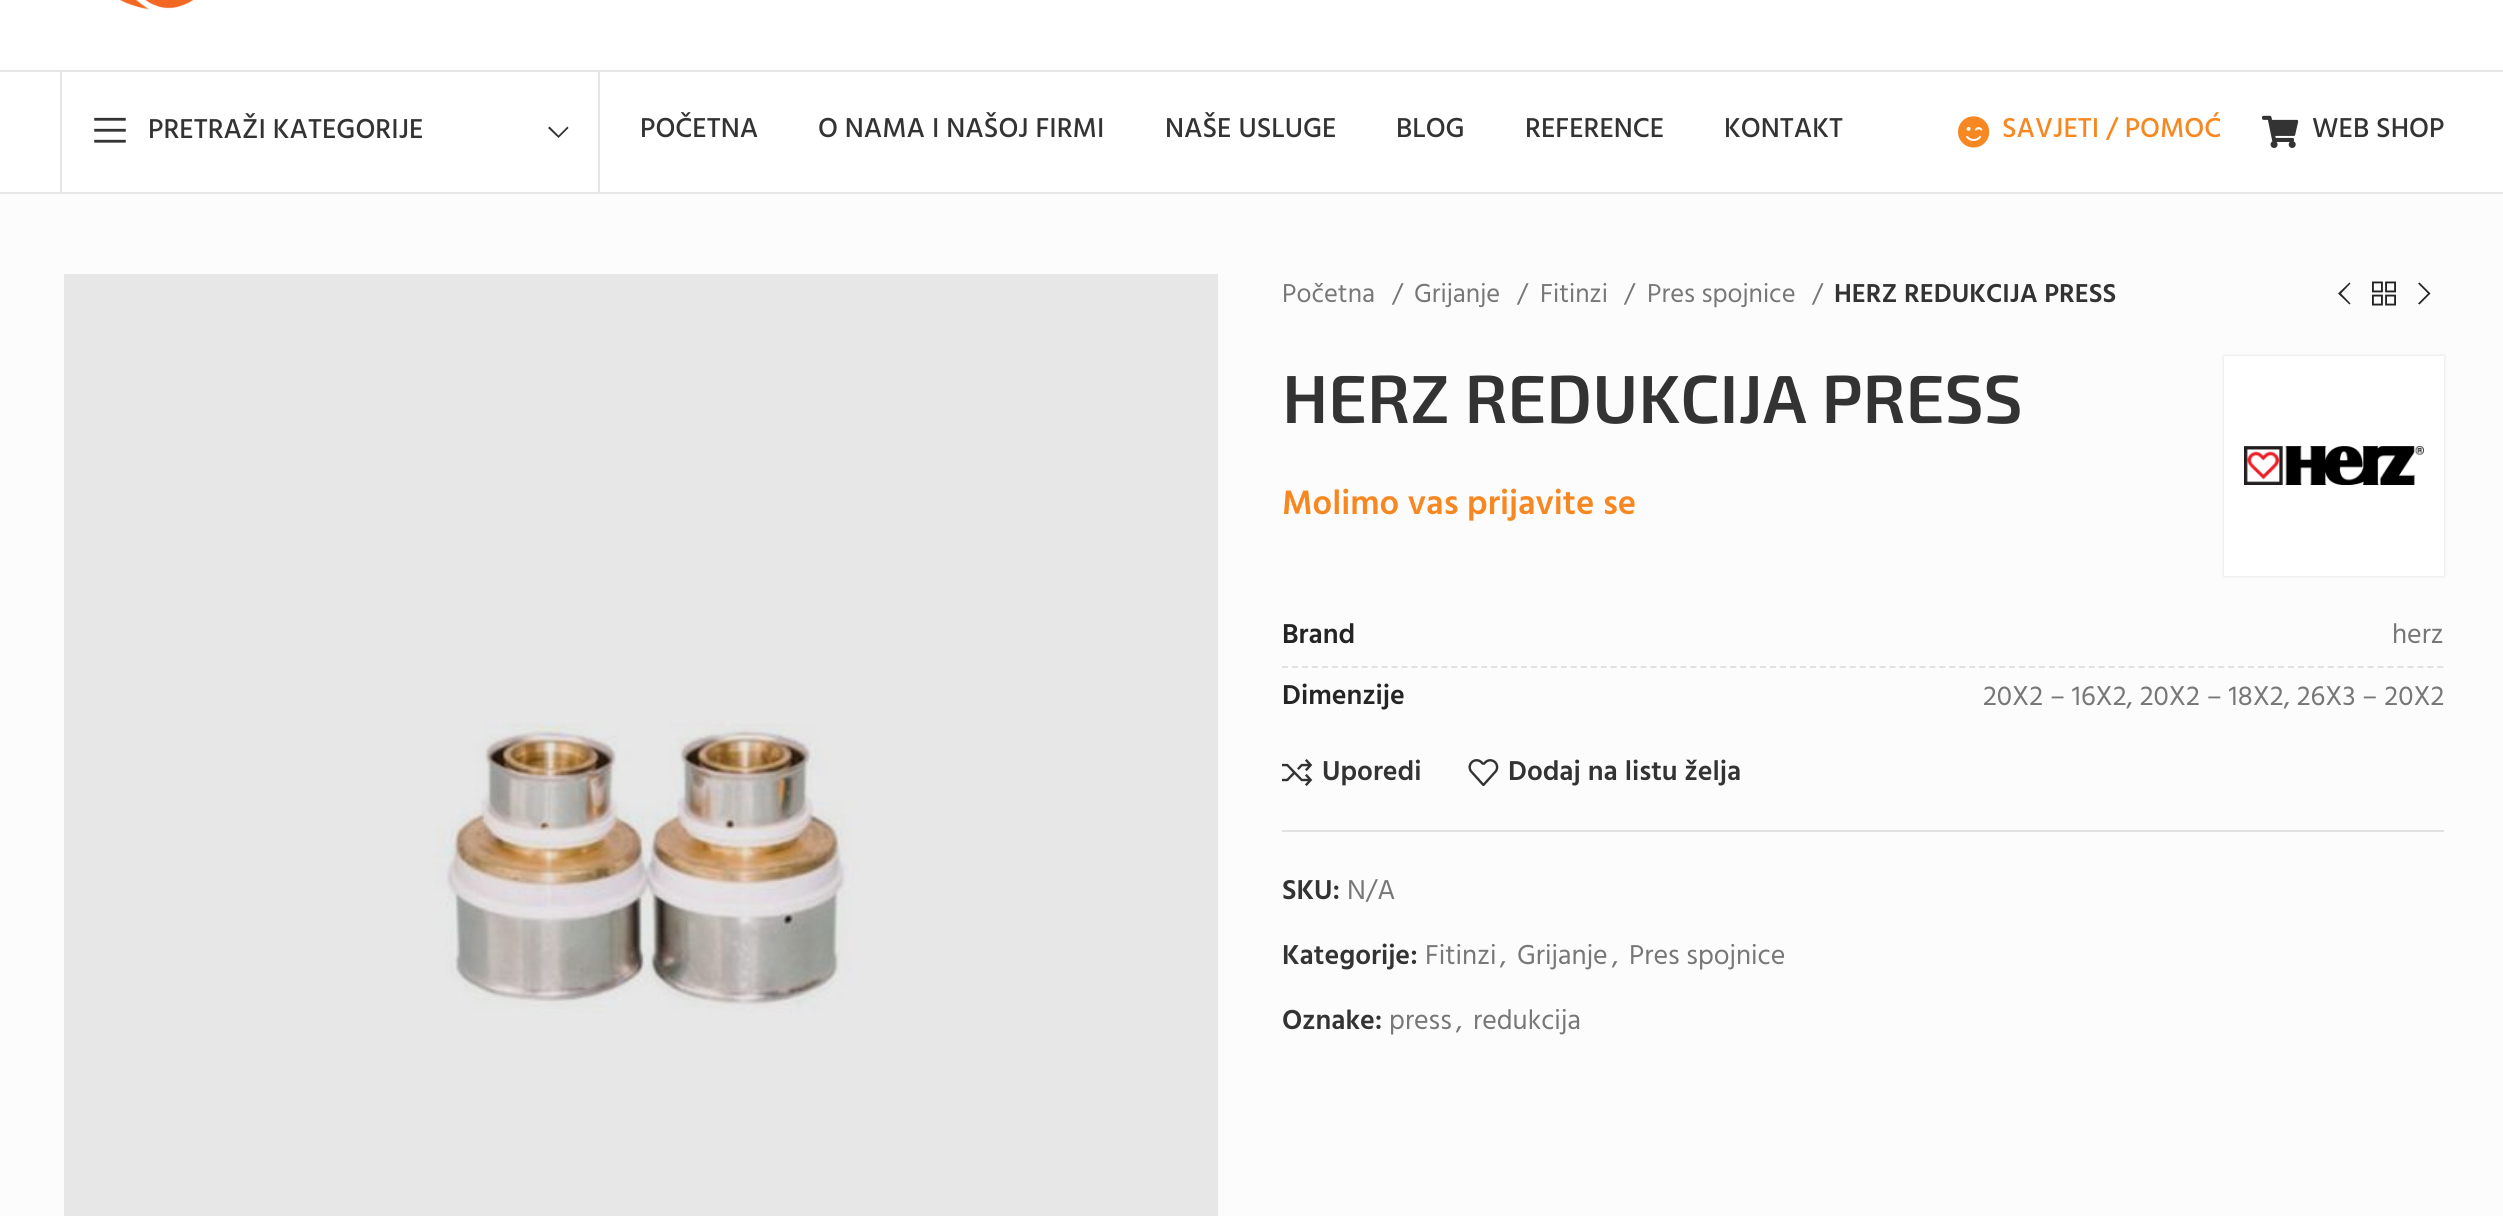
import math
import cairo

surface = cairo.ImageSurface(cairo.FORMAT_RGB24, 2503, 1216)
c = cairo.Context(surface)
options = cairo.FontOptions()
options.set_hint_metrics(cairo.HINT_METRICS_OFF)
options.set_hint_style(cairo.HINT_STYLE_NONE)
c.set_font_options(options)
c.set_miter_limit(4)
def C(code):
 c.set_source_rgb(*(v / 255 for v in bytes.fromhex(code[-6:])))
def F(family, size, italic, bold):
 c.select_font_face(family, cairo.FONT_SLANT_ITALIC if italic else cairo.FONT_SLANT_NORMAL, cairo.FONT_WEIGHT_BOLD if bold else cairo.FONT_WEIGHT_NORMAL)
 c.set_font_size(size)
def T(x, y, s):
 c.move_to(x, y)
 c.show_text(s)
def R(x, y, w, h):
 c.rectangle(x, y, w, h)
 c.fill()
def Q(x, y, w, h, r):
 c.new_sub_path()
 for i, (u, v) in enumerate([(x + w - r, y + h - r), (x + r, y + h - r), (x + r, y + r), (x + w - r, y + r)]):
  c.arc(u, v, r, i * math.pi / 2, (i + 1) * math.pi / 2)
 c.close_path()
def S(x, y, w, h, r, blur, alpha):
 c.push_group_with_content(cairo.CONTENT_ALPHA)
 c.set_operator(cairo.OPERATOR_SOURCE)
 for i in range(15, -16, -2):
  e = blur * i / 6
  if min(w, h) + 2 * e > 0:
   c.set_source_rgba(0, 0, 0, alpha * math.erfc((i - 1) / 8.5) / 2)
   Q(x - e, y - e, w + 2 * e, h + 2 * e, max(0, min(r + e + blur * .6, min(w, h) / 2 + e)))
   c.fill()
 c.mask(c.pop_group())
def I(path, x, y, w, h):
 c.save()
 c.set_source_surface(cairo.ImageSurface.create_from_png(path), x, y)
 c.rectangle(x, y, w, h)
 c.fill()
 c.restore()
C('ffffff')
c.paint()
C('e7e7e7')
R(0,70,2503,2)
I('1.png',119,0,75,10)
R(0,192,2503,2)
c.rectangle(61,71,538,122)
C('e6e6e6')
c.stroke()
I('2.png',94,117,32,26)
F('Hind Medium',28,0,0)
C('333333')
T(148,138,'PRETRAŽI KATEGORIJE')
c.new_path()
c.move_to(567.5,126.5)
c.line_to(558.5,135.5)
c.line_to(549.5,126.5)
c.line_to(548,128)
c.line_to(558.5,138)
c.line_to(568.5,128)
c.close_path()
c.fill()
T(640,137,'POČETNA')
T(818,137,'O NAMA I NAŠOJ FIRMI')
T(1165,137,'NAŠE USLUGE')
T(1396,137,'BLOG')
T(1525,137,'REFERENCE')
T(1724,137,'KONTAKT')
I('3.png',1958,116,32,32)
C('f78821')
T(2002,137,'SAVJETI / POMOĆ')
I('4.png',2262,115,37,33)
C('333333')
T(2312,137,'WEB SHOP')
C('fcfcfc')
R(0,194,2503,1022)
I('5.png',64,274,1154,942)
F('Hind',26.6,0,0)
C('777777')
T(1282,302,'Početna')
T(1392,302,'/')
T(1414,302,'Grijanje')
T(1517,302,'/')
T(1540,302,'Fitinzi')
T(1624,302,'/')
T(1647,302,'Pres spojnice')
T(1812,302,'/')
F('Hind SemiBold',26.6,0,0)
C('333333')
T(1834,302,'HERZ REDUKCIJA PRESS')
C('242424')
c.new_path()
c.move_to(2350.5,283.5)
c.line_to(2349.5,282.5)
c.line_to(2338,293.5)
c.line_to(2349.5,304.5)
c.line_to(2350.5,303.5)
c.line_to(2341,293.5)
c.close_path()
c.fill()
I('6.png',2372,281,24,25)
c.new_path()
c.move_to(2418,283.5)
c.line_to(2428,293.5)
c.line_to(2418,303.5)
c.line_to(2419.5,304.5)
c.line_to(2430.5,293.5)
c.line_to(2419.5,282.5)
c.close_path()
c.fill()
F('Exo 2 SemiBold',68,0,0)
C('333333')
T(1282,423,'HERZ REDUKCIJA PRESS')
C('000000')
S(2224,356,220,220,0,2,.12)
C('ffffff')
R(2224,356,220,220)
I('7.png',2244,446,180,39)
F('Hind SemiBold',34.75,0,0)
C('f78821')
T(1282,514,'Molimo vas prijavite se')
c.new_path()
c.move_to(1282,667)
c.line_to(2444,667)
C('e1e1e1')
c.set_dash([6,3.96])
c.stroke()
F('Hind SemiBold',28,0,0)
C('242424')
T(1282,643,'Brand')
F('Hind',28,0,0)
C('777777')
T(2392,643,'herz')
F('Hind SemiBold',28,0,0)
C('242424')
T(1282,704,'Dimenzije')
F('Hind',28,0,0)
C('777777')
T(1983,705,'20X2 – 16X2, 20X2 – 18X2, 26X3 – 20X2')
I('8.png',1282,759,31,27)
F('Hind SemiBold',28,0,0)
C('333333')
T(1322,780,'Uporedi')
I('9.png',1468,759,31,27)
T(1508,780,'Dodaj na listu želja')
C('e1e1e1')
R(1282,830,1162,2)
C('333333')
T(1282,899,'SKU:')
F('Hind',28,0,0)
C('777777')
T(1347,899,'N/A')
F('Hind SemiBold',28,0,0)
C('333333')
T(1282,964,'Kategorije:')
F('Hind',28,0,0)
C('777777')
T(1425,964,'Fitinzi')
T(1500,964,',')
T(1517,964,'Grijanje')
T(1612,964,',')
T(1629,964,'Pres spojnice')
F('Hind SemiBold',28,0,0)
C('333333')
T(1282,1029,'Oznake:')
F('Hind',28,0,0)
C('777777')
T(1389,1029,'press')
T(1456,1029,',')
T(1473,1029,'redukcija')
surface.write_to_png('o.png')
